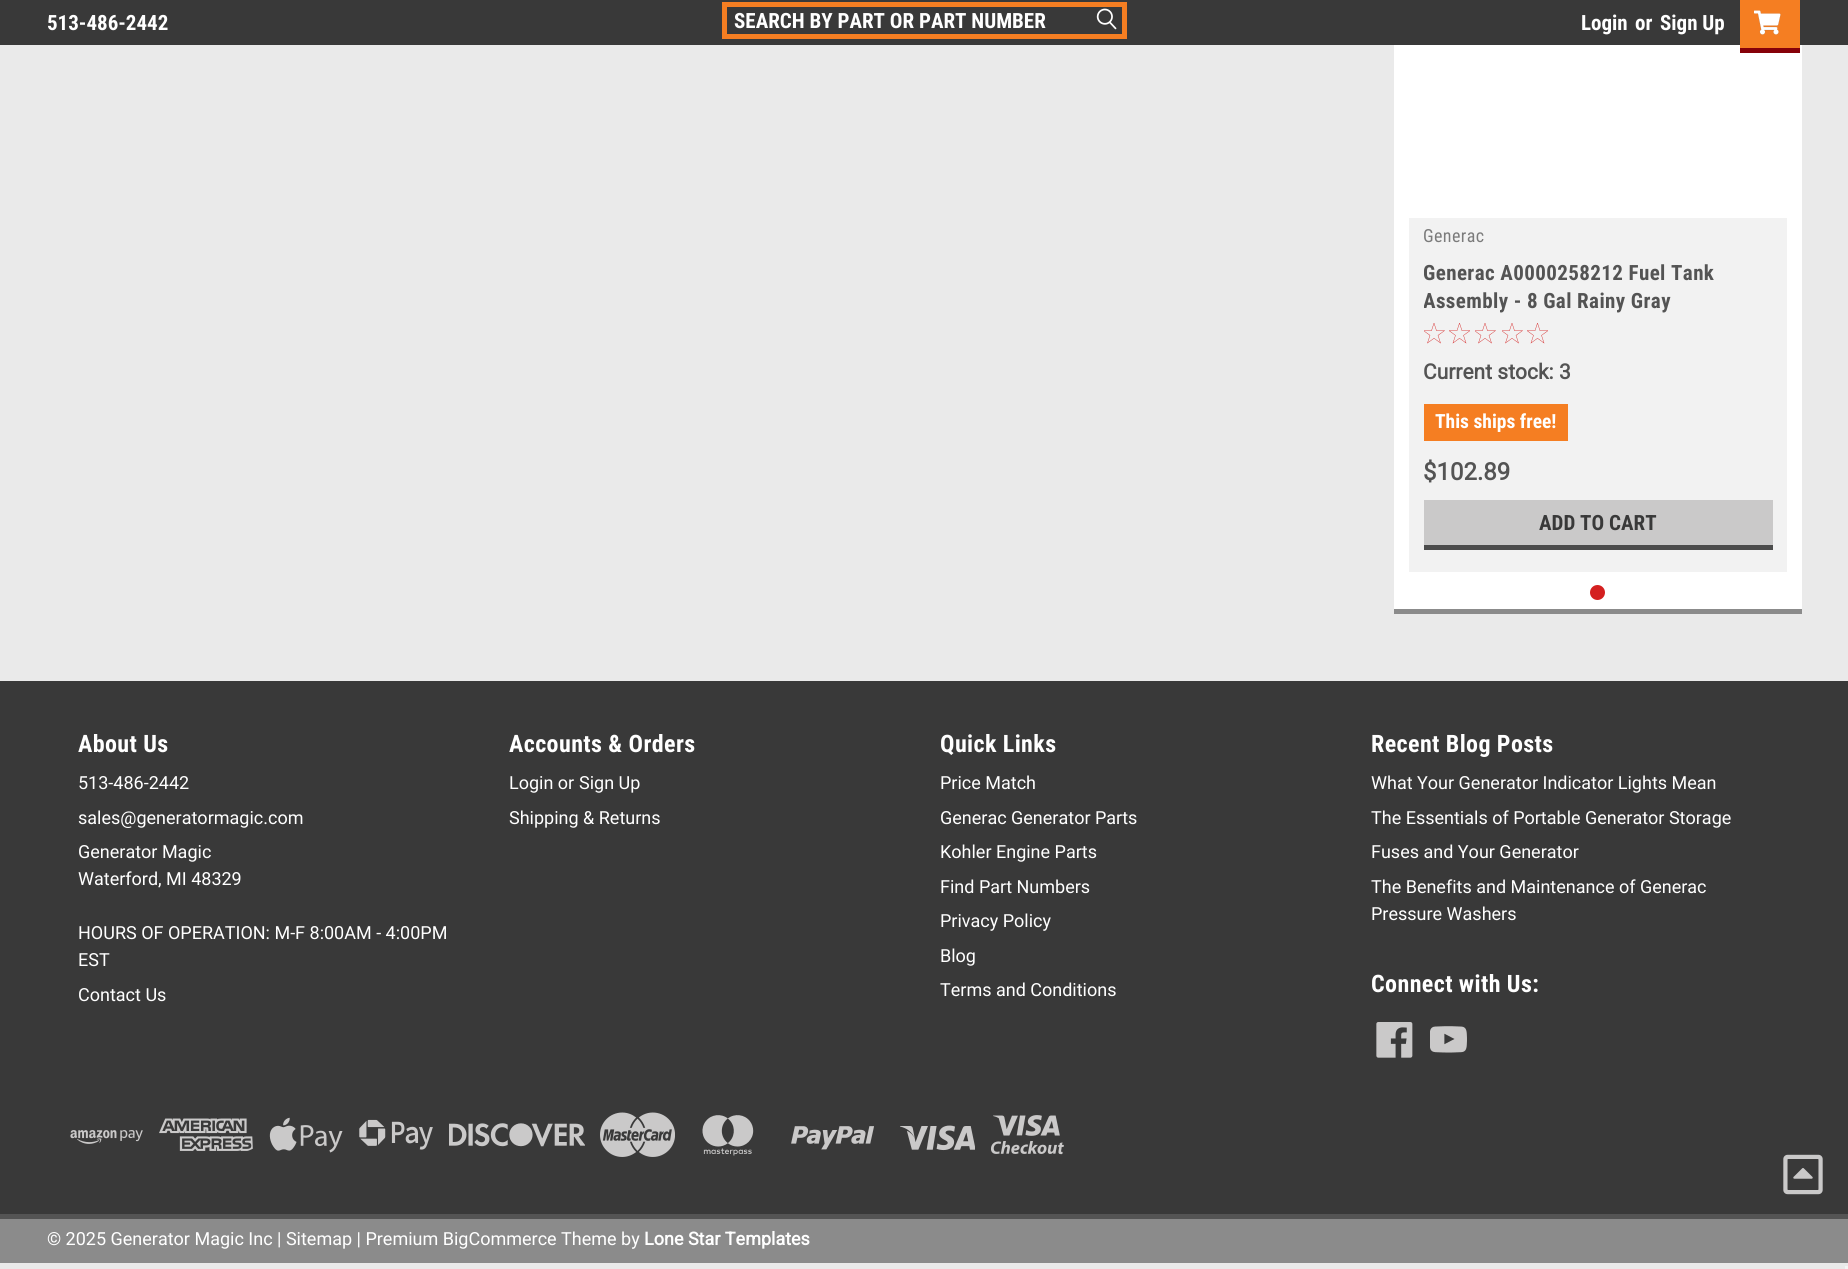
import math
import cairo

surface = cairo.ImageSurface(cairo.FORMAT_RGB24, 1848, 1269)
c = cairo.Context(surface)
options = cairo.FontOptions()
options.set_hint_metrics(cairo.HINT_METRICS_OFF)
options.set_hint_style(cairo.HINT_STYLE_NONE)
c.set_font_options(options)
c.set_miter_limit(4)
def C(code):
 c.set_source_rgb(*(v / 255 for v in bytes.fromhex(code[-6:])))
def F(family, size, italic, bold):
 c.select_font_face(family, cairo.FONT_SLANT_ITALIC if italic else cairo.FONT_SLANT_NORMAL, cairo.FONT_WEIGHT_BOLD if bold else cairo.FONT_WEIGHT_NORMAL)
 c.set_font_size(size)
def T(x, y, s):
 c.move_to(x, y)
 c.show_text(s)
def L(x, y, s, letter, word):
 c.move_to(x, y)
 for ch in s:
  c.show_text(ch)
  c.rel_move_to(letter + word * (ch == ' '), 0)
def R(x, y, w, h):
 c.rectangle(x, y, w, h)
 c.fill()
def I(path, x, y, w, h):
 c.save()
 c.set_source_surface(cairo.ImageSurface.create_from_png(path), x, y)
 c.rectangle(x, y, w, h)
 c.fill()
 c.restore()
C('eaeaea')
c.paint()
C('393939')
R(0,0,1848,45)
c.rectangle(724.5,4.5,400,32)
C('f57e22')
c.set_line_width(5)
c.stroke()
F('Roboto Condensed',21,0,1)
C('ffffff')
T(734,28,'SEARCH BY PART OR PART NUMBER')
I('1.png',1096,8,21,22)
T(47,30,'513-486-2442')
T(1581,30,'Login')
T(1635,30,'or')
T(1660,30,'Sign Up')
R(1394,45,408,564)
C('f57e22')
R(1740,0,60,48)
C('860109')
R(1740,48,60,5)
I('2.png',1754,10,27,25)
C('8b8b8b')
R(1394,609,408,5)
C('f2f2f2')
R(1409,218,378,354)
c.save()
c.rectangle(1424,225,349,27)
c.clip()
F('Roboto Condensed',18,0,0)
C('7b7b7b')
L(1423,242,'Generac',.4,0)
c.restore()
c.save()
c.rectangle(1424,260,349,57)
c.clip()
C('545454')
L(1423,280,'Generac A0000258212 Fuel Tank',.4,0)
L(1423,308,'Assembly - 8 Gal Rainy Gray',.4,0)
c.restore()
I('3.png',1424,323,21,21)
I('4.png',1449,323,21,21)
I('3.png',1475,323,21,21)
I('3.png',1502,323,21,21)
I('4.png',1527,323,21,21)
F('Roboto',21,0,1)
C('545454')
T(1423,379,'Current stock: 3')
C('f57e22')
R(1424,404,144,37)
F('Roboto Condensed',19.5,0,1)
C('ffffff')
T(1435,428,'This ships free!')
F('Roboto',24,0,1)
C('545454')
T(1423,480,'$102.89')
C('cac9c9')
R(1424,500,349,45)
C('4c4c4c')
R(1424,545,349,5)
F('Roboto Condensed',21,0,1)
C('393939')
T(1539,530,'ADD TO CART')
C('d42020')
c.new_path()
c.arc(1597.5,592.5,7.5,0,2 * math.pi)
c.fill()
C('393939')
R(0,681,1848,533)
F('Roboto Condensed',24,0,1)
C('ffffff')
L(78,752,'About Us',.4,0)
F('Roboto',18,0,0)
T(78,789,'513-486-2442')
T(78,824,'sales@generatormagic.com')
T(78,858,'Generator Magic')
T(78,885,'Waterford, MI 48329')
T(78,939,'HOURS OF OPERATION: M-F 8:00AM - 4:00PM')
T(78,966,'EST')
T(78,1001,'Contact Us')
F('Roboto Condensed',24,0,1)
L(509,752,'Accounts & Orders',.4,0)
F('Roboto',18,0,0)
T(509,789,'Login or')
T(579,789,'Sign Up')
T(509,824,'Shipping & Returns')
F('Roboto Condensed',24,0,1)
L(940,752,'Quick Links',.4,0)
F('Roboto',18,0,0)
T(940,789,'Price Match')
T(940,824,'Generac Generator Parts')
T(940,858,'Kohler Engine Parts')
T(940,893,'Find Part Numbers')
T(940,927,'Privacy Policy')
T(940,962,'Blog')
T(940,996,'Terms and Conditions')
F('Roboto Condensed',24,0,1)
L(1371,752,'Recent Blog Posts',.4,0)
F('Roboto',18,0,0)
T(1371,789,'What Your Generator Indicator Lights Mean')
T(1371,824,'The Essentials of Portable Generator Storage')
T(1371,858,'Fuses and Your Generator')
T(1371,893,'The Benefits and Maintenance of Generac')
T(1371,920,'Pressure Washers')
F('Roboto Condensed',24,0,1)
L(1371,992,'Connect with Us:',.4,0)
I('5.png',1376,1022,37,36)
I('6.png',1430,1026,37,27)
I('7.png',70,1130,73,14)
I('8.png',159,1118,94,33)
I('9.png',269,1117,74,36)
I('10.png',359,1119,74,31)
I('11.png',449,1123,136,24)
I('12.png',600,1112,75,45)
I('13.png',702,1115,52,41)
I('14.png',791,1126,83,24)
I('15.png',900,1125,75,26)
I('16.png',991,1115,73,40)
I('17.png',1783,1154,40,41)
C('8b8b8b')
R(0,1219,1848,44)
C('545454')
R(0,1214,1848,5)
F('Roboto',18,0,0)
C('ffffff')
T(47,1245,'© 2025 Generator Magic Inc | Sitemap | Premium BigCommerce Theme by')
F('Roboto',18,0,1)
T(644,1245,'Lone Star Templates')
C('f5f5f5')
R(1845,1266,3,3)
surface.write_to_png('o.png')
